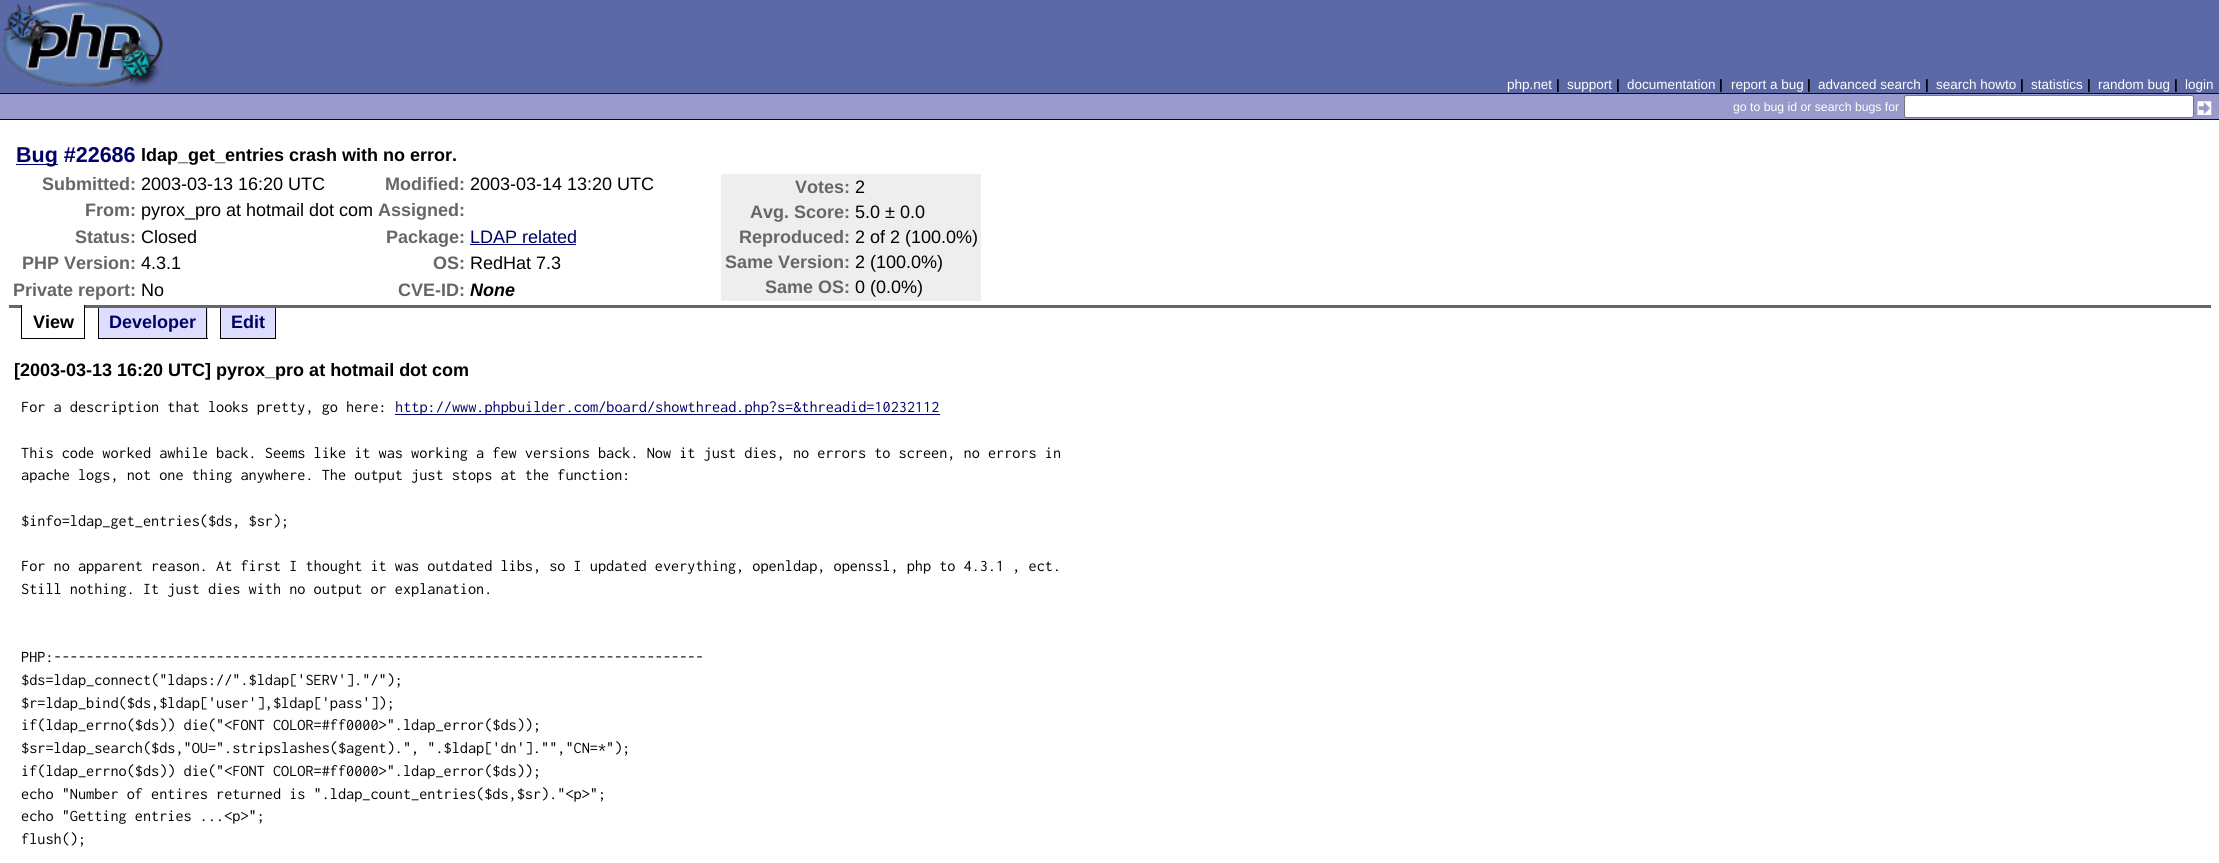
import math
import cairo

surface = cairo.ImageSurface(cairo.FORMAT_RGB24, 2219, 863)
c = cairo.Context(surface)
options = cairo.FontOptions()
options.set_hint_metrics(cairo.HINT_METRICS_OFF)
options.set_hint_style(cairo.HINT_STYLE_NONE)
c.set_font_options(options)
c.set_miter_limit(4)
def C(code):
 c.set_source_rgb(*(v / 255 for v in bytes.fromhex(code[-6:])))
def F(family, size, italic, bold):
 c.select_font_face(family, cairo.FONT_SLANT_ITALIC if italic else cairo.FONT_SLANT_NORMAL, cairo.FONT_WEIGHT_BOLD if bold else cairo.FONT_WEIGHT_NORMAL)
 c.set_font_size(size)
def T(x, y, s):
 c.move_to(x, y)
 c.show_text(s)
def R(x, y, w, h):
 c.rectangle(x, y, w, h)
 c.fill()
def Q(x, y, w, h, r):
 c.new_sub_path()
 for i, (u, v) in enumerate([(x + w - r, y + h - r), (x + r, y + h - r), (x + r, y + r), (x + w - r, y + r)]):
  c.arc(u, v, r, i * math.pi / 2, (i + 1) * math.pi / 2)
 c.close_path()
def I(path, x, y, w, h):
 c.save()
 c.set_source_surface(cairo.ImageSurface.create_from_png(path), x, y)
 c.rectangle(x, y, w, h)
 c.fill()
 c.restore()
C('ffffff')
c.paint()
C('5b69a6')
R(0,0,2219,93)
I('1.png',3,2,160,85)
F('Liberation Sans',13.5,0,0)
C('ffffff')
T(1507,89,'php.net')
F('Liberation Sans',13.5,0,1)
C('000000')
T(1556,89,'|')
F('Liberation Sans',13.5,0,0)
C('ffffff')
T(1567,89,'support')
F('Liberation Sans',13.5,0,1)
C('000000')
T(1616,89,'|')
F('Liberation Sans',13.5,0,0)
C('ffffff')
T(1627,89,'documentation')
F('Liberation Sans',13.5,0,1)
C('000000')
T(1719,89,'|')
F('Liberation Sans',13.5,0,0)
C('ffffff')
T(1731,89,'report a bug')
F('Liberation Sans',13.5,0,1)
C('000000')
T(1807,89,'|')
F('Liberation Sans',13.5,0,0)
C('ffffff')
T(1818,89,'advanced search')
F('Liberation Sans',13.5,0,1)
C('000000')
T(1925,89,'|')
F('Liberation Sans',13.5,0,0)
C('ffffff')
T(1936,89,'search howto')
F('Liberation Sans',13.5,0,1)
C('000000')
T(2020,89,'|')
F('Liberation Sans',13.5,0,0)
C('ffffff')
T(2031,89,'statistics')
F('Liberation Sans',13.5,0,1)
C('000000')
T(2087,89,'|')
F('Liberation Sans',13.5,0,0)
C('ffffff')
T(2098,89,'random bug')
F('Liberation Sans',13.5,0,1)
C('000000')
T(2174,89,'|')
F('Liberation Sans',13.5,0,0)
C('ffffff')
T(2185,89,'login')
C('9999cc')
R(0,94,2219,25)
C('000066')
R(0,93,2219,1)
R(0,119,2219,1)
F('Liberation Sans',12.25,0,0)
C('ffffff')
T(1733,111,'go to bug id or search bugs for')
Q(1904.5,95.5,289,22,2)
c.fill_preserve()
C('767676')
c.set_line_width(1)
c.stroke()
I('2.png',2197,101,15,14)
C('666666')
R(9,305,2202,3)
C('000066')
R(16,164,42,1)
F('Liberation Sans',21.5,0,1)
T(16,162,'Bug #22686')
F('Liberation Sans',18,0,1)
C('000000')
T(141,161,'ldap_get_entries crash with no error.')
C('666666')
T(42,190,'Submitted:')
F('Liberation Sans',18,0,0)
C('000000')
T(141,190,'2003-03-13 16:20 UTC')
F('Liberation Sans',18,0,1)
C('666666')
T(385,190,'Modified:')
F('Liberation Sans',18,0,0)
C('000000')
T(470,190,'2003-03-14 13:20 UTC')
C('eeeeee')
R(721,174,260,127)
F('Liberation Sans',18,0,1)
C('666666')
T(795,193,'Votes:')
F('Liberation Sans',18,0,0)
C('000000')
T(855,193,'2')
F('Liberation Sans',18,0,1)
C('666666')
T(750,218,'Avg. Score:')
F('Liberation Sans',18,0,0)
C('000000')
T(855,218,'5.0 ± 0.0')
F('Liberation Sans',18,0,1)
C('666666')
T(739,243,'Reproduced:')
F('Liberation Sans',18,0,0)
C('000000')
T(855,243,'2 of 2 (100.0%)')
F('Liberation Sans',18,0,1)
C('666666')
T(725,268,'Same Version:')
F('Liberation Sans',18,0,0)
C('000000')
T(855,268,'2 (100.0%)')
F('Liberation Sans',18,0,1)
C('666666')
T(765,293,'Same OS:')
F('Liberation Sans',18,0,0)
C('000000')
T(855,293,'0 (0.0%)')
F('Liberation Sans',18,0,1)
C('666666')
T(85,216,'From:')
F('Liberation Sans',18,0,0)
C('000000')
T(141,216,'pyrox_pro at hotmail dot com')
F('Liberation Sans',18,0,1)
C('666666')
T(378,216,'Assigned:')
T(75,243,'Status:')
F('Liberation Sans',18,0,0)
C('000000')
T(141,243,'Closed')
F('Liberation Sans',18,0,1)
C('666666')
T(386,243,'Package:')
F('Liberation Sans',18,0,0)
C('000066')
T(470,243,'LDAP related')
R(470,244,106,1)
F('Liberation Sans',18,0,1)
C('666666')
T(22,269,'PHP Version:')
F('Liberation Sans',18,0,0)
C('000000')
T(141,269,'4.3.1')
F('Liberation Sans',18,0,1)
C('666666')
T(433,269,'OS:')
F('Liberation Sans',18,0,0)
C('000000')
T(470,269,'RedHat 7.3')
F('Liberation Sans',18,0,1)
C('666666')
T(13,296,'Private report:')
F('Liberation Sans',18,0,0)
C('000000')
T(141,296,'No')
F('Liberation Sans',18,0,1)
C('666666')
T(398,296,'CVE-ID:')
F('Liberation Sans',18,1,1)
C('000000')
T(470,296,'None')
C('ffffff')
R(22,305,62,3)
C('000000')
R(84,305,1,34)
R(21,338,64,1)
R(21,305,1,34)
F('Liberation Sans',18,0,1)
T(33,328,'View')
C('ddddff')
R(99,308,109,30)
C('000000')
R(206,308,1,31)
R(98,338,110,1)
R(98,308,1,31)
C('000066')
T(109,328,'Developer')
C('ddddff')
R(221,308,54,30)
C('000000')
R(275,308,1,31)
R(220,338,56,1)
R(220,308,1,31)
C('000066')
T(231,328,'Edit')
C('000000')
T(14,376,'[2003-03-13 16:20 UTC] pyrox_pro at hotmail dot com')
F('Inconsolata',16.25,0,0)
T(21,412,'For a description that looks pretty, go here:')
C('000066')
R(395,414,545,1)
T(395,412,'http://www.phpbuilder.com/board/showthread.php?s=&threadid=10232112')
C('000000')
T(21,458,'This code worked awhile back. Seems like it was working a few versions back. Now it just dies, no errors to screen, no errors in')
T(21,480,'apache logs, not one thing anywhere. The output just stops at the function:')
T(21,526,'$info=ldap_get_entries($ds, $sr);')
T(21,571,'For no apparent reason. At first I thought it was outdated libs, so I updated everything, openldap, openssl, php to 4.3.1 , ect.')
T(21,594,'Still nothing. It just dies with no output or explanation.')
T(21,662,'PHP:--------------------------------------------------------------------------------')
T(21,685,'$ds=ldap_connect("ldaps://".$ldap[\'SERV\']."/");')
T(21,708,'$r=ldap_bind($ds,$ldap[\'user\'],$ldap[\'pass\']);')
T(21,730,'if(ldap_errno($ds)) die("<FONT COLOR=#ff0000>".ldap_error($ds));')
T(21,753,'$sr=ldap_search($ds,"OU=".stripslashes($agent).", ".$ldap[\'dn\']."","CN=*");')
T(21,776,'if(ldap_errno($ds)) die("<FONT COLOR=#ff0000>".ldap_error($ds));')
T(21,799,'echo "Number of entires returned is ".ldap_count_entries($ds,$sr)."<p>";')
T(21,821,'echo "Getting entries ...<p>";')
T(21,844,'flush();')
surface.write_to_png('o.png')
